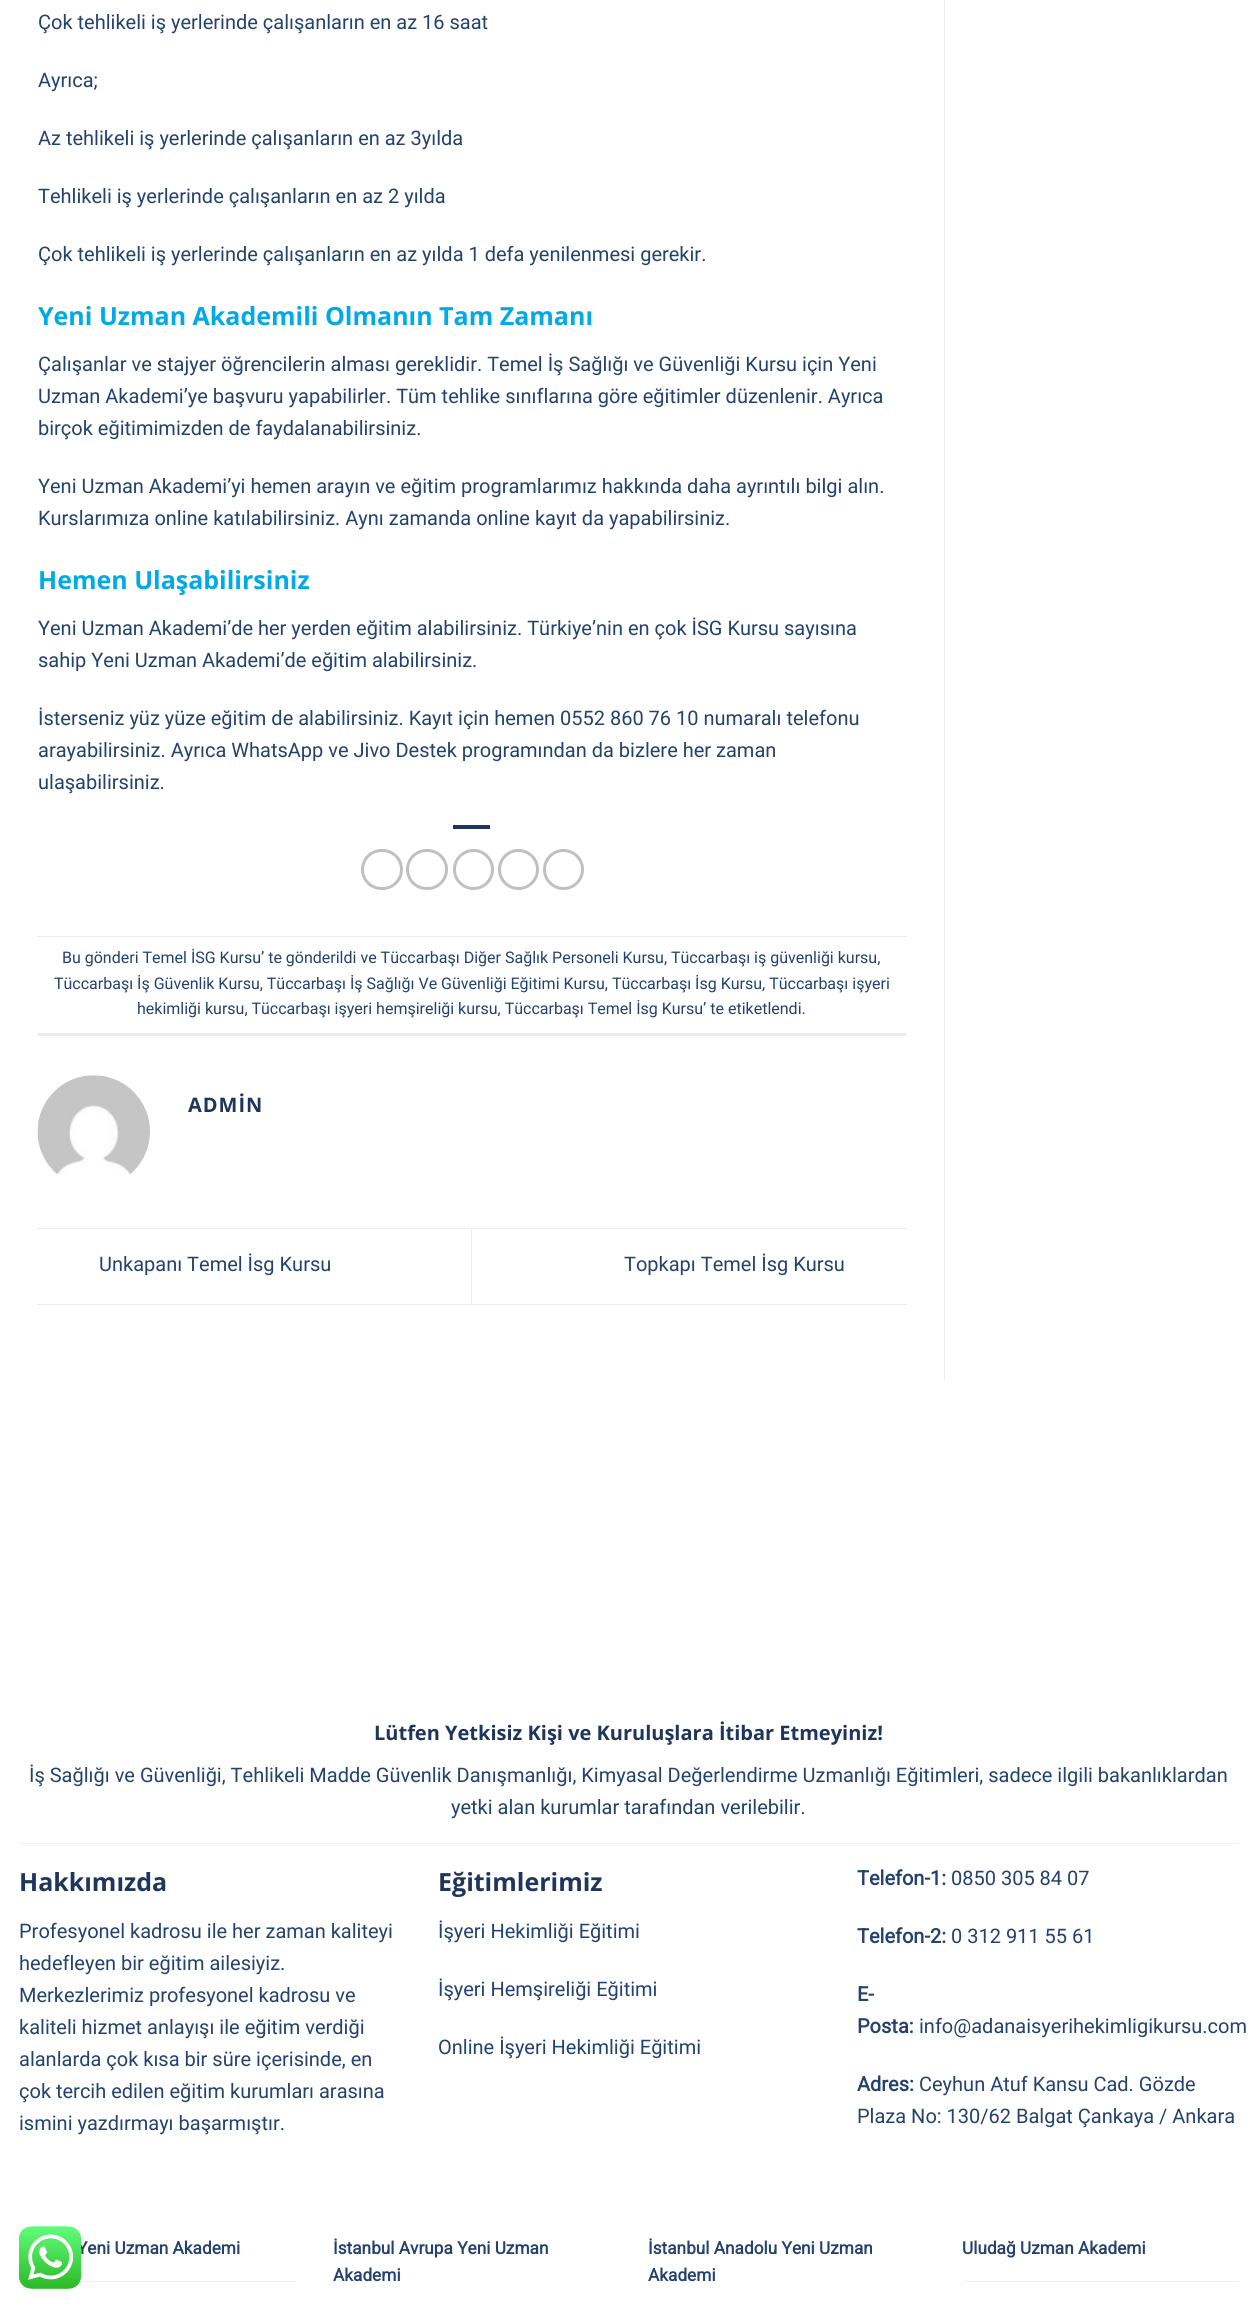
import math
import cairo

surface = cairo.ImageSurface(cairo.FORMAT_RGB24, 1257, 2307)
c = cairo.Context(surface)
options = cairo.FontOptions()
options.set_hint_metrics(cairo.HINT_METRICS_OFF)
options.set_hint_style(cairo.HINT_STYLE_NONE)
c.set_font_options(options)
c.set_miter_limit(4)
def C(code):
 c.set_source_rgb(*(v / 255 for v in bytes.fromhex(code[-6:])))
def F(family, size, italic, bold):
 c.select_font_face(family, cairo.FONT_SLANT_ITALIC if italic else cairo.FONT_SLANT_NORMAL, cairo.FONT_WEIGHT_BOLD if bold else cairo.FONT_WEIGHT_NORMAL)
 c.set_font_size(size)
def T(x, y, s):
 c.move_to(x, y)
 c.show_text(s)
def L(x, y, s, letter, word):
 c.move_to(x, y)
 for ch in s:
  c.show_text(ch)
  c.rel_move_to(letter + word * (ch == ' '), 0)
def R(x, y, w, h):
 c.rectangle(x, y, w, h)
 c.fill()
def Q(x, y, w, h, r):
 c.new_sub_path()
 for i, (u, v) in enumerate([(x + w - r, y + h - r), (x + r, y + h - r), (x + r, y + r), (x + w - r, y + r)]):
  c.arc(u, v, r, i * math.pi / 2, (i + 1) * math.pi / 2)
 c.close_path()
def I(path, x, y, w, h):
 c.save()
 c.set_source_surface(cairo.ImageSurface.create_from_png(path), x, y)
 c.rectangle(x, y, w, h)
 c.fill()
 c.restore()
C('ffffff')
c.paint()
F('Roboto',20,0,0)
C('24426e')
T(38,29,'Çok tehlikeli iş yerlerinde çalışanların en az 16 saat')
T(38,87,'Ayrıca;')
T(38,145,'Az tehlikeli iş yerlerinde çalışanların en az 3yılda')
T(38,203,'Tehlikeli iş yerlerinde çalışanların en az 2 yılda')
T(38,261,'Çok tehlikeli iş yerlerinde çalışanların en az yılda 1 defa yenilenmesi gerekir.')
F('Open Sans',25,0,1)
C('00aae7')
T(38,325,'Yeni Uzman Akademili Olmanın Tam Zamanı')
F('Roboto',20,0,0)
C('24426e')
T(38,371,'Çalışanlar ve stajyer öğrencilerin alması gereklidir. Temel İş Sağlığı ve Güvenliği Kursu için Yeni')
T(38,403,'Uzman Akademi’ye başvuru yapabilirler. Tüm tehlike sınıflarına göre eğitimler düzenlenir. Ayrıca')
T(38,435,'birçok eğitimimizden de faydalanabilirsiniz.')
T(38,493,'Yeni Uzman Akademi’yi hemen arayın ve eğitim programlarımız hakkında daha ayrıntılı bilgi alın.')
T(38,525,'Kurslarımıza online katılabilirsiniz. Aynı zamanda online kayıt da yapabilirsiniz.')
F('Open Sans',25,0,1)
C('00aae7')
T(38,589,'Hemen Ulaşabilirsiniz')
F('Roboto',20,0,0)
C('24426e')
T(38,635,'Yeni Uzman Akademi’de her yerden eğitim alabilirsiniz. Türkiye’nin en çok İSG Kursu sayısına')
T(38,667,'sahip Yeni Uzman Akademi’de eğitim alabilirsiniz.')
T(38,725,'İsterseniz yüz yüze eğitim de alabilirsiniz. Kayıt için hemen 0552 860 76 10 numaralı telefonu')
T(38,757,'arayabilirsiniz. Ayrıca WhatsApp ve Jivo Destek programından da bizlere her zaman')
T(38,789,'ulaşabilirsiniz.')
C('1f365c')
R(453,825,37,4)
Q(362.5,850.5,39,38,19)
C('c0c0c0')
c.set_line_width(3)
c.stroke()
Q(407.5,850.5,39,38,19)
c.stroke()
c.arc(473.5,869.5,19,0,2 * math.pi)
c.stroke()
c.arc(518.5,869.5,19,0,2 * math.pi)
c.stroke()
c.arc(563.5,869.5,19,0,2 * math.pi)
c.stroke()
C('ececec')
R(38,936,868,1)
R(38,1033,868,3)
F('Roboto',16,0,0)
C('24426e')
T(62,963,'Bu gönderi Temel İSG Kursu’ te gönderildi ve Tüccarbaşı Diğer Sağlık Personeli Kursu, Tüccarbaşı iş güvenliği kursu,')
T(54,989,'Tüccarbaşı İş Güvenlik Kursu, Tüccarbaşı İş Sağlığı Ve Güvenliği Eğitimi Kursu, Tüccarbaşı İsg Kursu, Tüccarbaşı işyeri')
T(137,1014,'hekimliği kursu, Tüccarbaşı işyeri hemşireliği kursu, Tüccarbaşı Temel İsg Kursu’ te etiketlendi.')
I('1.png',37,1075,113,100)
F('Open Sans',20,0,1)
C('1f365c')
L(188,1112,'ADMİN',1,0)
C('ececec')
R(38,1228,868,1)
R(38,1304,868,1)
F('Roboto',20,0,0)
C('24426e')
T(99,1271,'Unkapanı Temel İsg Kursu')
C('ececec')
R(471,1229,1,75)
C('24426e')
T(624,1271,'Topkapı Temel İsg Kursu')
C('ececec')
R(944,0,1,1380)
F('Open Sans',20,0,1)
C('1f365c')
T(374,1740,'Lütfen Yetkisiz Kişi ve Kuruluşlara İtibar Etmeyiniz!')
F('Roboto',20,0,0)
C('24426e')
T(29,1782,'İş Sağlığı ve Güvenliği, Tehlikeli Madde Güvenlik Danışmanlığı, Kimyasal Değerlendirme Uzmanlığı Eğitimleri, sadece ilgili bakanlıklardan')
T(451,1814,'yetki alan kurumlar tarafından verilebilir.')
C('f2f2f2')
R(19,1843,1220,1)
F('Open Sans',25,0,1)
C('1f365c')
T(19,1891,'Hakkımızda')
F('Roboto',20,0,0)
C('24426e')
T(19,1938,'Profesyonel kadrosu ile her zaman kaliteyi')
T(19,1970,'hedefleyen bir eğitim ailesiyiz.')
T(19,2002,'Merkezlerimiz profesyonel kadrosu ve')
T(19,2034,'kaliteli hizmet anlayışı ile eğitim verdiği')
T(19,2066,'alanlarda çok kısa bir süre içerisinde, en')
T(19,2098,'çok tercih edilen eğitim kurumları arasına')
T(19,2130,'ismini yazdırmayı başarmıştır.')
F('Open Sans',25,0,1)
C('1f365c')
T(438,1891,'Eğitimlerimiz')
F('Roboto',20,0,0)
C('24426e')
T(438,1938,'İşyeri Hekimliği Eğitimi')
T(438,1996,'İşyeri Hemşireliği Eğitimi')
T(438,2054,'Online İşyeri Hekimliği Eğitimi')
F('Roboto',20,0,1)
T(857,1885,'Telefon-1:')
F('Roboto',20,0,0)
T(951,1885,'0850 305 84 07')
F('Roboto',20,0,1)
T(857,1943,'Telefon-2:')
F('Roboto',20,0,0)
T(951,1943,'0 312 911 55 61')
F('Roboto',20,0,1)
T(857,2001,'E-')
T(857,2033,'Posta:')
F('Roboto',20,0,0)
T(919,2033,'info@adanaisyerihekimligikursu.com')
F('Roboto',20,0,1)
T(857,2091,'Adres:')
F('Roboto',20,0,0)
T(919,2091,'Ceyhun Atuf Kansu Cad. Gözde')
T(857,2123,'Plaza No: 130/62 Balgat Çankaya / Ankara')
F('Roboto',17.25,0,1)
T(77,2254,'Yeni Uzman Akademi')
C('f2f2f2')
R(19,2281,277,1)
C('24426e')
T(333,2254,'İstanbul Avrupa Yeni Uzman')
T(333,2281,'Akademi')
T(648,2254,'İstanbul Anadolu Yeni Uzman')
T(648,2281,'Akademi')
T(962,2254,'Uludağ Uzman Akademi')
C('f2f2f2')
R(963,2281,276,1)
I('2.png',19,2226,62,63)
surface.write_to_png('o.png')
